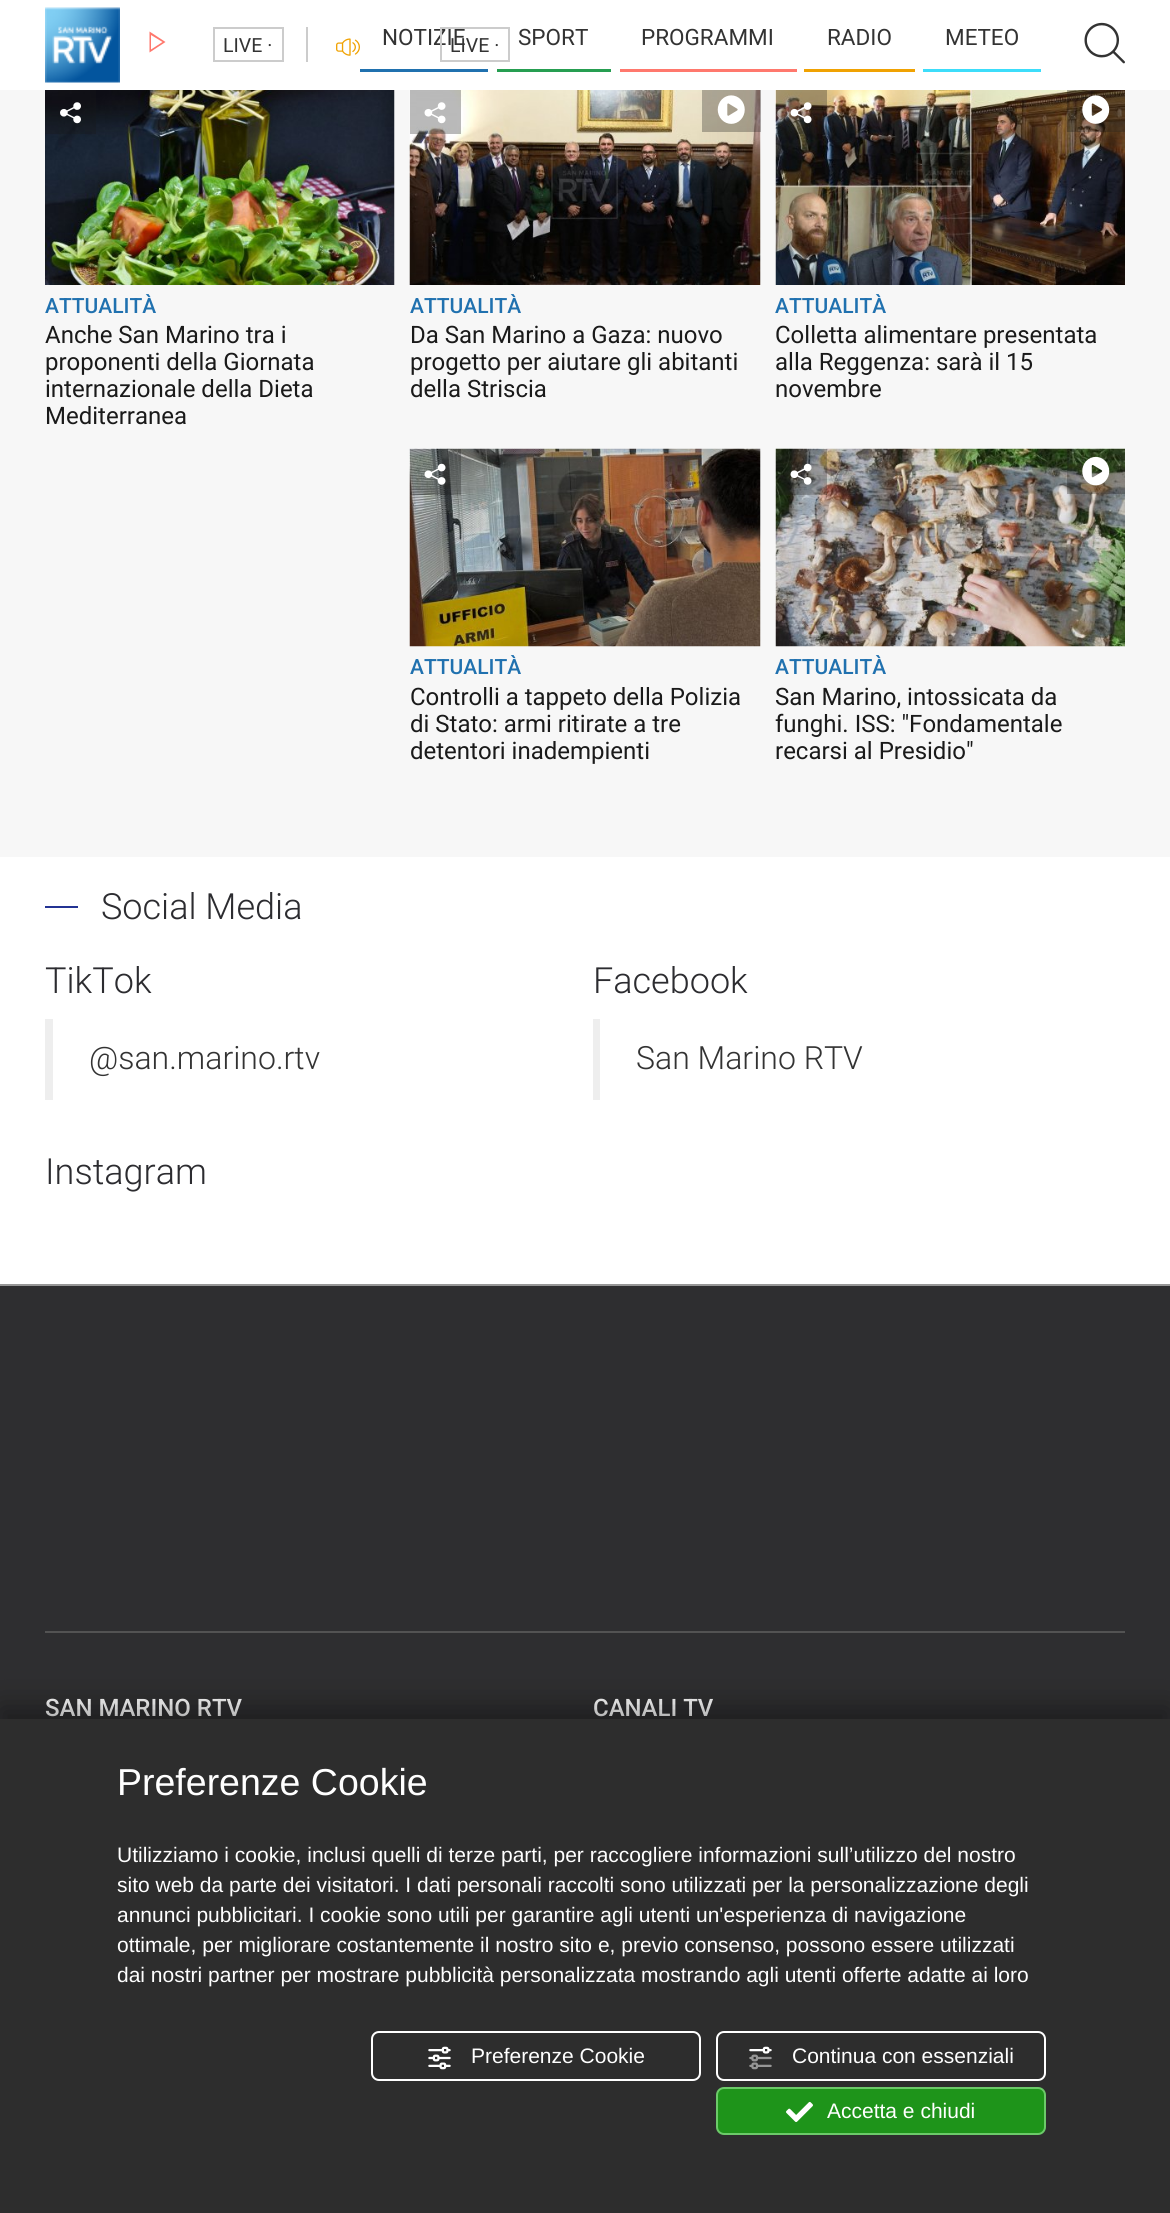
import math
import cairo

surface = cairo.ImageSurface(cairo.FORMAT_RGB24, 1170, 2213)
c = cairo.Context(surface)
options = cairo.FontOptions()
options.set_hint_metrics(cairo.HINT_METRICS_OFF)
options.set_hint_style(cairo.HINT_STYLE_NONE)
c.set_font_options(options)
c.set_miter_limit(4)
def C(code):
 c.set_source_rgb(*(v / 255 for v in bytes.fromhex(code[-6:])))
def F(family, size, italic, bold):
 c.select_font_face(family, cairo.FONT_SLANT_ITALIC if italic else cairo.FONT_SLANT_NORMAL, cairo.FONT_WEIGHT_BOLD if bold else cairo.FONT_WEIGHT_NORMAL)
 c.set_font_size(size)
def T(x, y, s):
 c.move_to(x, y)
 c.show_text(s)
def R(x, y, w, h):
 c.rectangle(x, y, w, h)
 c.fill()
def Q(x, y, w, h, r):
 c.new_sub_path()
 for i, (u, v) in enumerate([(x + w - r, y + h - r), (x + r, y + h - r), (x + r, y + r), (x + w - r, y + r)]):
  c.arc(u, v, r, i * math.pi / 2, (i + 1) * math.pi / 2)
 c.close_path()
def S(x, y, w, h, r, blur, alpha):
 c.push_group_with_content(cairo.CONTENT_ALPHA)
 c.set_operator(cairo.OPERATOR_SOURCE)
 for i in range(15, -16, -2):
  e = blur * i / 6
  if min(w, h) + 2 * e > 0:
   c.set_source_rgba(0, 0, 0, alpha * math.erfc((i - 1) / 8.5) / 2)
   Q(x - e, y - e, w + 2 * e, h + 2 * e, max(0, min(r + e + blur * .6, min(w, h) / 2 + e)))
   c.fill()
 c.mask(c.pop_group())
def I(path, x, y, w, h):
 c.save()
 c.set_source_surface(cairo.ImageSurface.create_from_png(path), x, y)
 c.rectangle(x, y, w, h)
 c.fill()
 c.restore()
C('f7f7f7')
c.paint()
C('ffffff')
R(0,0,1170,90)
I('1.png',45,7,75,76)
C('cccccc')
R(306,27,2,35)
C('ff786d')
c.new_path()
c.move_to(151,35)
c.line_to(162.5,42)
c.line_to(151,49.5)
c.close_path()
c.move_to(149.5,31.5)
c.line_to(149.5,52.5)
c.line_to(165.5,42)
c.close_path()
c.fill()
c.rectangle(214,28,69,33)
C('cccccc')
c.stroke()
F('Roboto',19.5,0,0)
C('333333')
T(223,52,'LIVE ·')
I('2.png',336,38,24,18)
F('Roboto',22.5,0,0)
T(382,45,'NOTIZIE')
c.rectangle(441,28,68,33)
C('cccccc')
c.stroke()
F('Roboto',19.5,0,0)
C('333333')
T(450,52,'LIVE ·')
C('2071af')
R(360,69,128,3)
C('269e51')
R(497,69,114,3)
F('Roboto',22.5,0,0)
C('333333')
T(518,45,'SPORT')
C('ff786d')
R(620,69,177,3)
C('333333')
T(641,45,'PROGRAMMI')
C('f0a202')
R(804,69,111,3)
C('333333')
T(827,45,'RADIO')
C('3dddfa')
R(923,69,118,3)
C('333333')
T(945,45,'METEO')
I('3.png',1084,22,41,42)
I('4.png',45,90,350,195)
c.set_source_rgba(0.102,0.102,0.102,0.3)
R(45,90,51,44)
I('5.png',60,102,21,22)
F('Roboto Medium',21,0,0)
C('2071af')
T(45,313,'ATTUALITÀ')
F('Roboto',24,0,0)
C('1a1a1a')
T(45,343,'Anche San Marino tra i')
T(45,370,'proponenti della Giornata')
T(45,397,'internazionale della Dieta')
T(45,424,'Mediterranea')
I('6.png',409,90,352,195)
c.set_source_rgba(0.102,0.102,0.102,0.3)
R(410,90,51,44)
I('7.png',424,102,22,22)
R(702,90,59,42)
I('8.png',717,95,28,29)
F('Roboto Medium',21,0,0)
C('2071af')
T(410,313,'ATTUALITÀ')
F('Roboto',24,0,0)
C('1a1a1a')
T(410,343,'Da San Marino a Gaza: nuovo')
T(410,370,'progetto per aiutare gli abitanti')
T(410,397,'della Striscia')
I('9.png',775,90,350,195)
c.set_source_rgba(0.102,0.102,0.102,0.3)
R(776,90,51,44)
I('10.png',790,102,22,22)
R(1067,90,58,42)
I('11.png',1082,95,28,29)
F('Roboto Medium',21,0,0)
C('2071af')
T(775,313,'ATTUALITÀ')
F('Roboto',24,0,0)
C('1a1a1a')
T(775,343,'Colletta alimentare presentata')
T(775,370,'alla Reggenza: sarà il 15')
T(775,397,'novembre')
I('12.png',409,448,352,199)
c.set_source_rgba(0.102,0.102,0.102,0.3)
R(410,449,51,46)
I('13.png',424,463,22,22)
F('Roboto Medium',21,0,0)
C('2071af')
T(410,674,'ATTUALITÀ')
F('Roboto',24,0,0)
C('1a1a1a')
T(410,705,'Controlli a tappeto della Polizia')
T(410,732,'di Stato: armi ritirate a tre')
T(410,759,'detentori inadempienti')
I('14.png',775,448,350,199)
c.set_source_rgba(0.102,0.102,0.102,0.3)
R(776,449,51,46)
I('15.png',790,463,22,22)
R(1067,449,58,45)
I('16.png',1082,456,28,30)
F('Roboto Medium',21,0,0)
C('2071af')
T(775,674,'ATTUALITÀ')
F('Roboto',24,0,0)
C('1a1a1a')
T(775,705,'San Marino, intossicata da')
T(775,732,'funghi. ISS: "Fondamentale')
T(775,759,'recarsi al Presidio"')
C('ffffff')
R(0,857,1170,427)
C('233393')
R(45,906,33,2)
F('Roboto Light',36,0,0)
C('2c2c30')
T(101,919,'Social Media')
T(45,993,'TikTok')
C('eeeeee')
R(45,1019,8,81)
F('Roboto Light',32,0,0)
C('333333')
T(89,1069,'@san.marino.rtv')
F('Roboto Light',36,0,0)
C('2c2c30')
T(593,993,'Facebook')
C('eeeeee')
R(593,1019,7,81)
F('Roboto Light',32,0,0)
C('333333')
T(636,1069,'San Marino RTV')
F('Roboto Light',36,0,0)
C('2c2c30')
T(45,1184,'Instagram')
C('2e2e30')
R(0,1286,1170,433)
C('969696')
R(0,1284,1170,2)
C('535353')
R(45,1631,1080,2)
F('Roboto Medium',24,0,0)
C('ffffff')
T(45,1716,'SAN MARINO RTV')
T(593,1716,'CANALI TV')
C('000000')
S(0,1707,1170,495,0,15,.38)
C('2d2d2d')
R(0,1719,1170,494)
F('Liberation Sans',37.5,0,0)
C('ffffff')
T(117,1795,'Preferenze Cookie')
F('Liberation Sans',21,0,0)
T(117,1862,'Utilizziamo i cookie, inclusi quelli di terze parti, per raccogliere informazioni sull’utilizzo del nostro')
T(117,1892,'sito web da parte dei visitatori. I dati personali raccolti sono utilizzati per la personalizzazione degli')
T(117,1922,'annunci pubblicitari. I cookie sono utili per garantire agli utenti un\'esperienza di navigazione')
T(117,1952,'ottimale, per migliorare costantemente il nostro sito e, previo consenso, possono essere utilizzati')
T(117,1982,'dai nostri partner per mostrare pubblicità personalizzata mostrando agli utenti offerte adatte ai loro')
Q(372,2032,328,48,7)
c.stroke()
I('17.png',428,2046,23,24)
T(471,2063,'Preferenze Cookie')
Q(717,2032,328,48,7)
c.stroke()
I('18.png',749,2046,23,24)
T(792,2063,'Continua con essenziali')
C('1e941a')
Q(717,2088,328,46,7)
c.fill_preserve()
C('6cca69')
c.stroke()
I('19.png',786,2101,27,21)
C('ffffff')
T(827,2118,'Accetta e chiudi')
surface.write_to_png('o.png')
